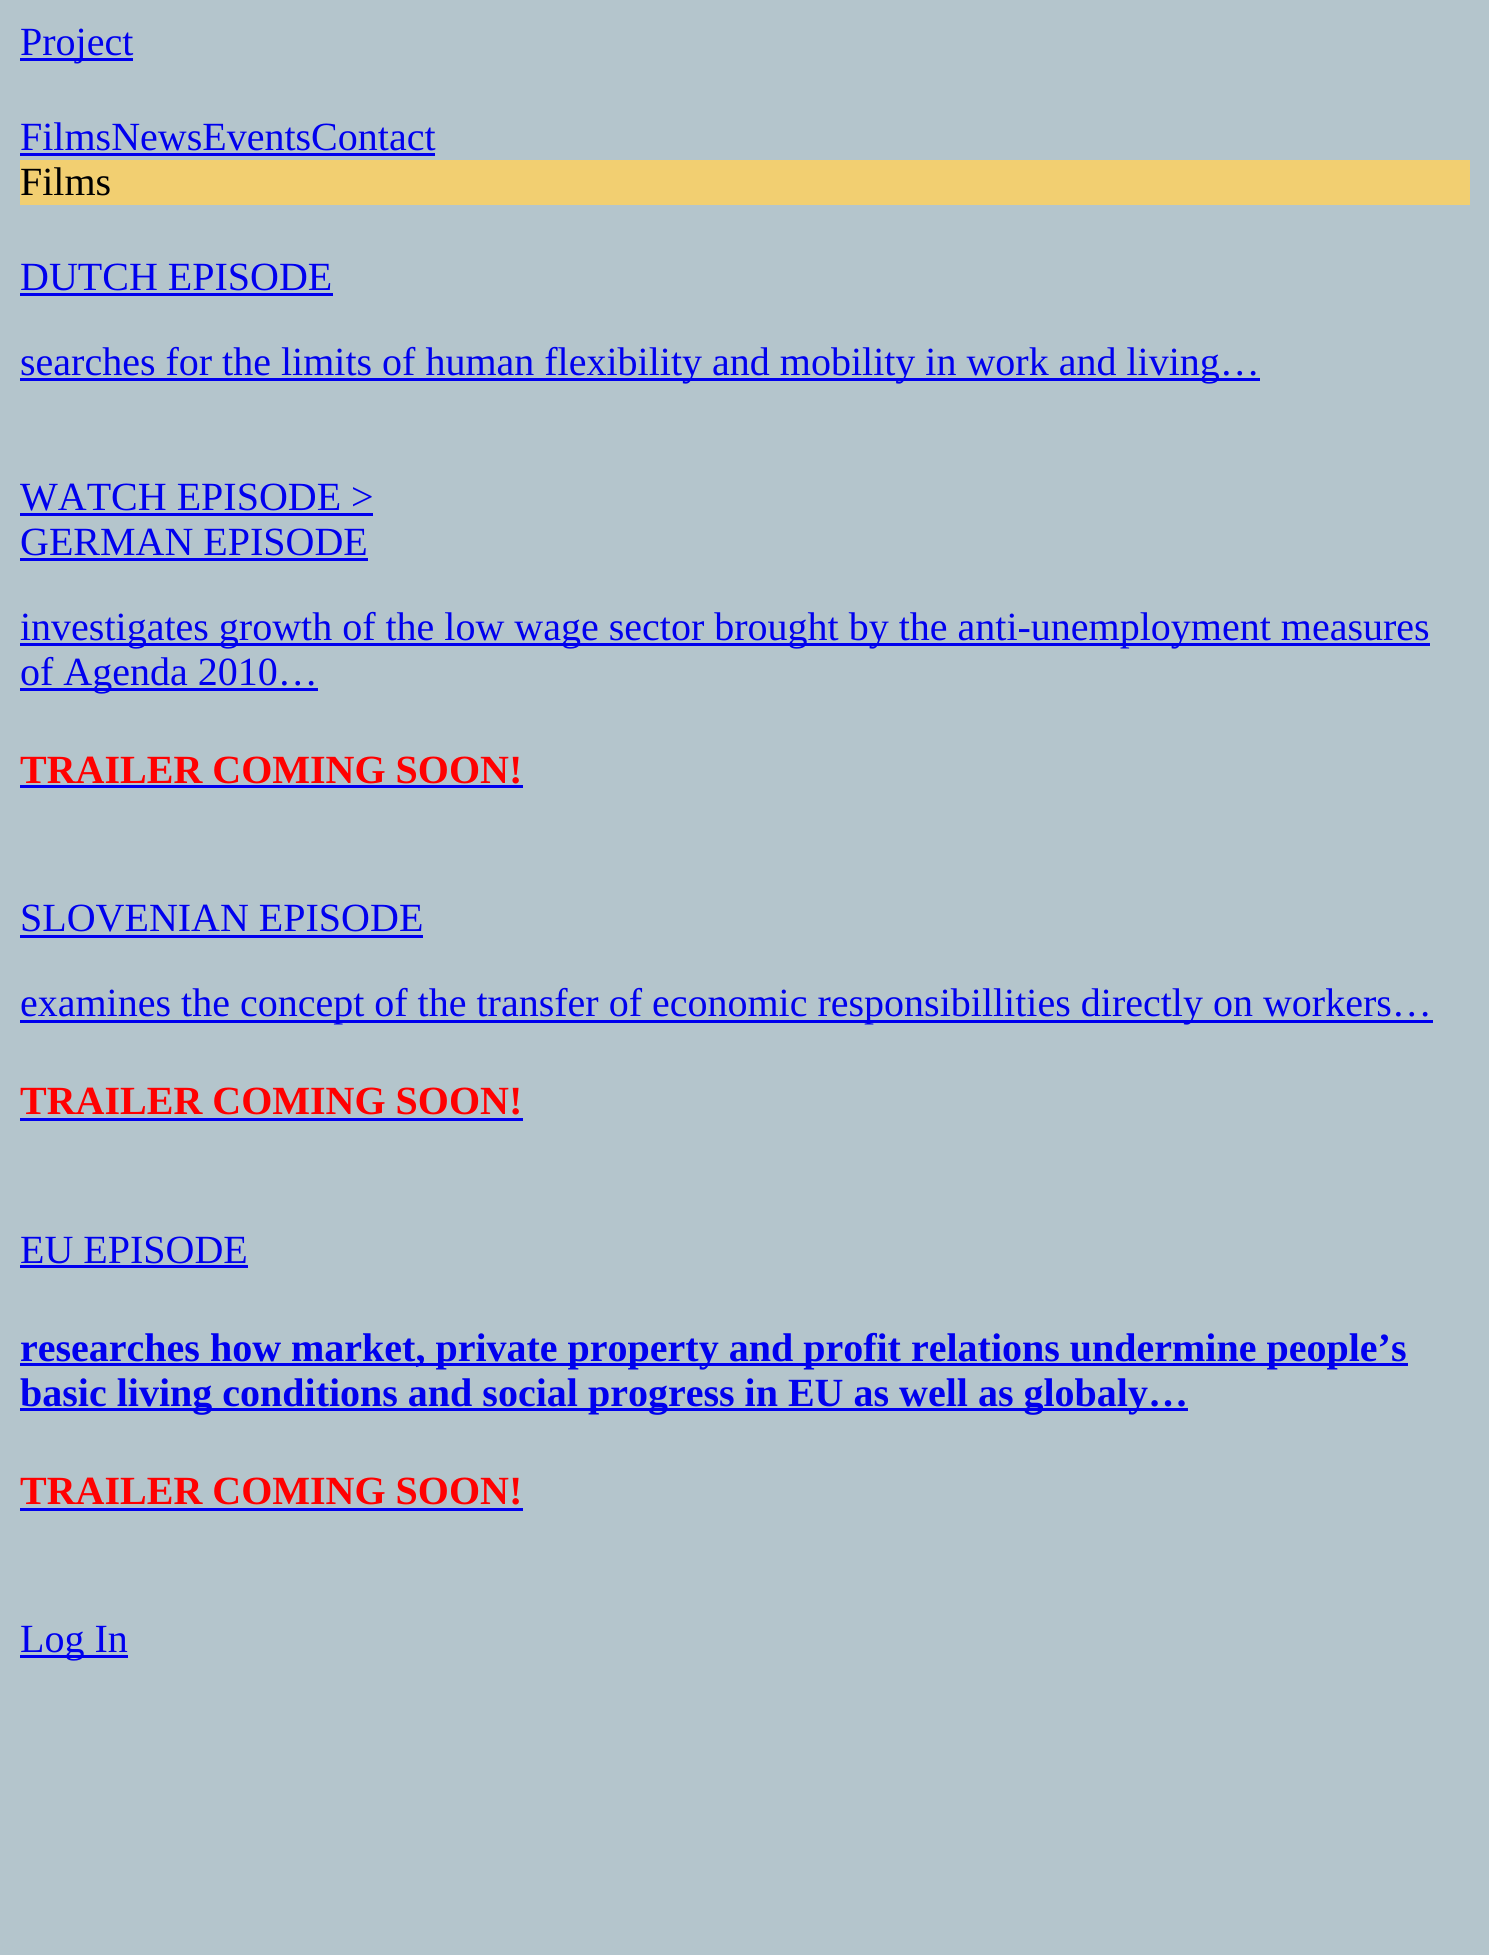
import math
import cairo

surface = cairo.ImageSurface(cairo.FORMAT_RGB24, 1489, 1955)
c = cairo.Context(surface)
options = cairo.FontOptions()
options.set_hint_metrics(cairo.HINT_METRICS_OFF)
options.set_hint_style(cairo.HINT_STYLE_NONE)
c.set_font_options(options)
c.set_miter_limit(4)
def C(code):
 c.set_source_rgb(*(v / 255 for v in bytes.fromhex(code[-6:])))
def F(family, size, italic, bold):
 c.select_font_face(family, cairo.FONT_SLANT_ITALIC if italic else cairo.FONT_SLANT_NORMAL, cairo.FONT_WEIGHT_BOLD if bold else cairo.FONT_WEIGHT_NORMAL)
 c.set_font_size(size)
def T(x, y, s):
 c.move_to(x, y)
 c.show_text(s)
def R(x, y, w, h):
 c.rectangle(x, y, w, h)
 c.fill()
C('b4c5cc')
c.paint()
C('0000ee')
R(20,58,113,3)
F('Liberation Serif',40,0,0)
T(20,55,'Project')
T(20,150,'FilmsNewsEventsContact')
R(20,153,415,3)
C('f2cf71')
R(20,160,1450,45)
C('000000')
T(20,195,'Films')
C('0000ee')
T(20,290,'DUTCH EPISODE')
R(20,293,313,3)
R(20,378,1240,3)
T(20,375,'searches for the limits of human flexibility and mobility in work and living…')
T(20,510,'WATCH EPISODE >')
R(20,513,353,3)
T(20,555,'GERMAN EPISODE')
R(20,558,348,3)
R(20,643,1410,3)
T(20,640,'investigates growth of the low wage sector brought by the anti-unemployment measures')
R(20,688,298,3)
T(20,685,'of Agenda 2010…')
F('Liberation Serif',40,0,1)
C('ff0000')
T(20,783,'TRAILER COMING SOON!')
C('0000ee')
R(20,785,503,3)
F('Liberation Serif',40,0,0)
T(20,931,'SLOVENIAN EPISODE')
R(20,935,403,3)
R(20,1020,1413,3)
T(20,1016,'examines the concept of the transfer of economic responsibillities directly on workers…')
F('Liberation Serif',40,0,1)
C('ff0000')
T(20,1114,'TRAILER COMING SOON!')
C('0000ee')
R(20,1118,503,3)
F('Liberation Serif',40,0,0)
T(20,1263,'EU EPISODE')
R(20,1265,228,3)
R(20,1363,1388,3)
F('Liberation Serif',40,0,1)
T(20,1361,'researches how market, private property and profit relations undermine people’s')
R(20,1408,1168,3)
T(20,1406,'basic living conditions and social progress in EU as well as globaly…')
C('ff0000')
T(20,1504,'TRAILER COMING SOON!')
C('0000ee')
R(20,1508,503,3)
R(20,1655,108,3)
F('Liberation Serif',40,0,0)
T(20,1652,'Log In')
surface.write_to_png('o.png')
